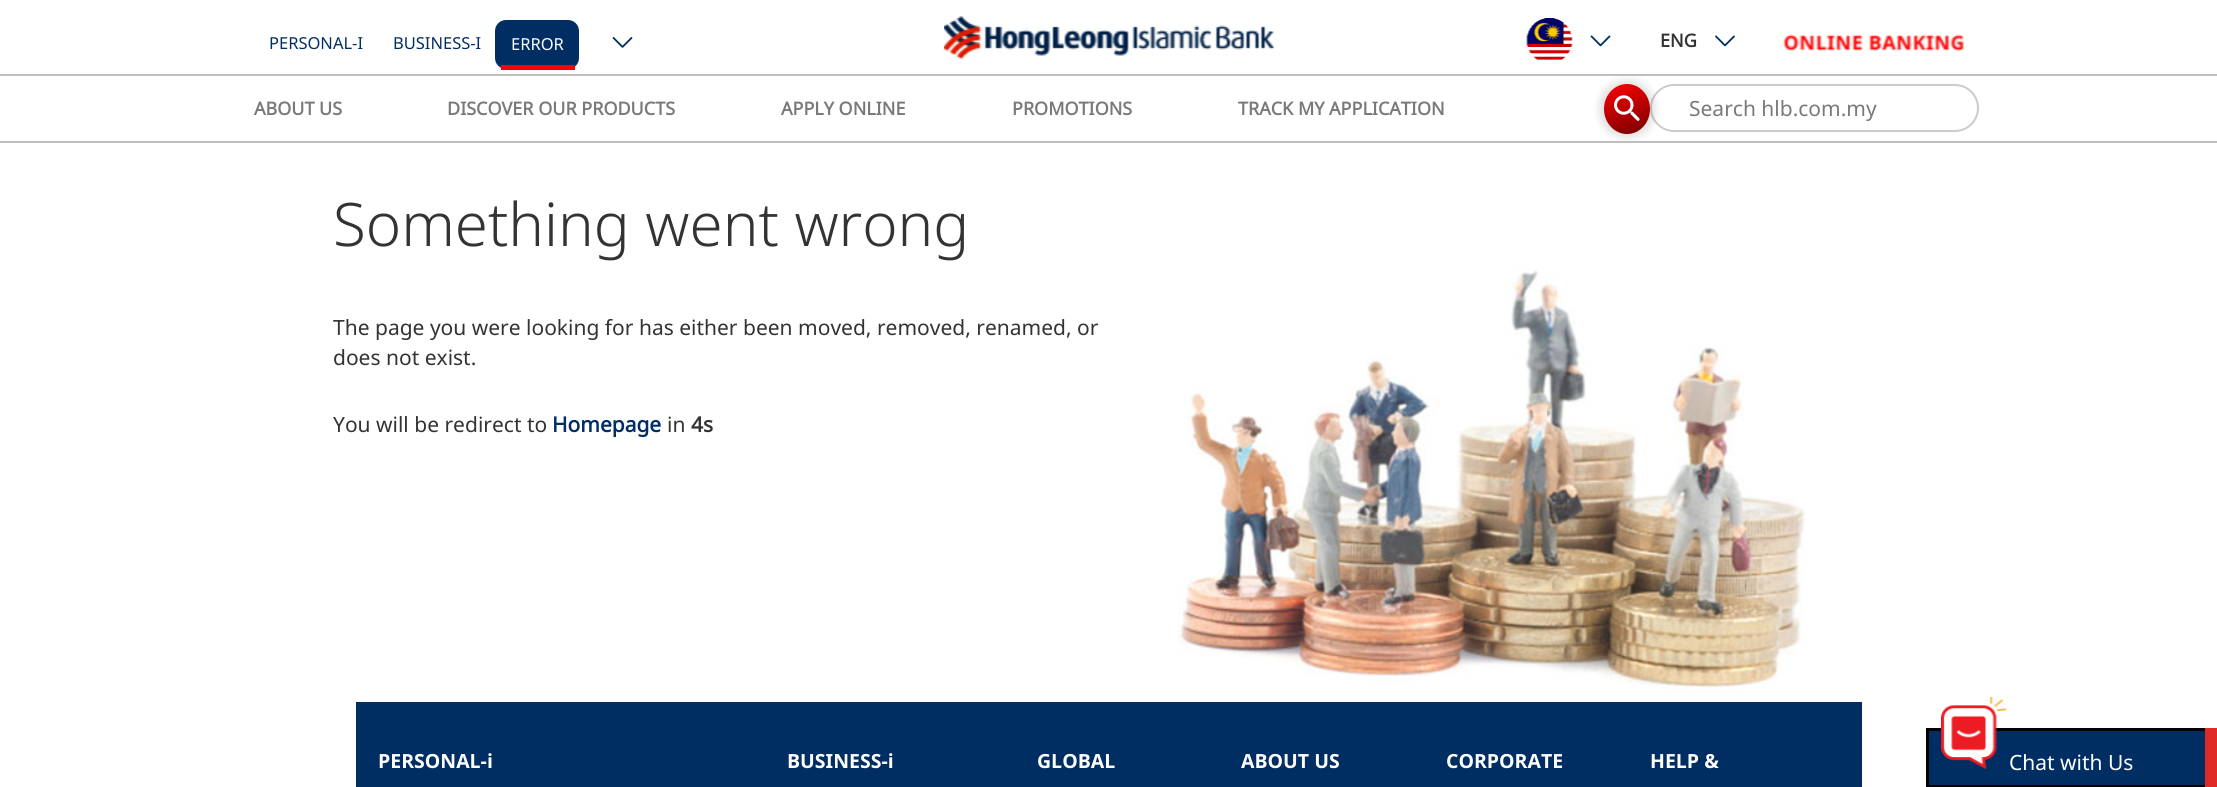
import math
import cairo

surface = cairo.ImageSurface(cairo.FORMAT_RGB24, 2217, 787)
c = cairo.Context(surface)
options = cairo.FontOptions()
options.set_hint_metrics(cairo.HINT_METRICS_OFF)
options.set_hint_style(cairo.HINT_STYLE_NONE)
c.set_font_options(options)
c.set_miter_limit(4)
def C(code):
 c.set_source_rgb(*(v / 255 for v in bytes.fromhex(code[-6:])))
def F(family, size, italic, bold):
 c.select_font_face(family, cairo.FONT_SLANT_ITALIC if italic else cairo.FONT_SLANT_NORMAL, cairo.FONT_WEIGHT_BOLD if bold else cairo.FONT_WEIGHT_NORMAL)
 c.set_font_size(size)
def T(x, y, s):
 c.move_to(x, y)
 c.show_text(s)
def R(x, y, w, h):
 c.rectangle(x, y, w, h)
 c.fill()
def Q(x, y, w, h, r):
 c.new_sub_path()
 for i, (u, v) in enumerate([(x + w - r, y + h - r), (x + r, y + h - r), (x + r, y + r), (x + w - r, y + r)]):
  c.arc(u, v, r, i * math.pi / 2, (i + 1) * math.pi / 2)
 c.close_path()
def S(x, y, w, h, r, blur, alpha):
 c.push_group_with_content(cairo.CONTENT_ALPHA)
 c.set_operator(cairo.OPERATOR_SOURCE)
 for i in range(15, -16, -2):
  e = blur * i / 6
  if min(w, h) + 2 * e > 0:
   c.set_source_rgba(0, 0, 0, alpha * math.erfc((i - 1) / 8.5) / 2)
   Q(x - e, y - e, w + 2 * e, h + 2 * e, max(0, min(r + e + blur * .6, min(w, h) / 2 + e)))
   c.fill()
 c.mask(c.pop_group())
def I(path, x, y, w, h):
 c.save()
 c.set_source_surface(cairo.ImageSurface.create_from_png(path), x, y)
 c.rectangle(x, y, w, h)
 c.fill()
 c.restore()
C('ffffff')
c.paint()
C('bfbfbf')
R(0,74,2217,2)
F('Noto Sans',16.5,0,0)
C('002d62')
T(269,49,'PERSONAL-I')
T(393,49,'BUSINESS-I')
Q(495,20,84,49,11)
c.fill()
C('ff0000')
R(501,65,74,5)
C('ffffff')
T(511,50,'ERROR')
I('1.png',612,37,21,11)
I('2.png',944,16,330,43)
I('3.png',1526,18,47,43)
I('4.png',1590,35,21,12)
F('Noto Sans',18,0,1)
C('333333')
T(1660,47,'ENG')
I('5.png',1715,35,20,12)
I('6.png',1783,34,181,17)
C('bfbfbf')
R(0,141,2217,2)
C('787978')
T(254,115,'ABOUT US')
T(447,115,'DISCOVER OUR PRODUCTS')
T(781,115,'APPLY ONLINE')
T(1012,115,'PROMOTIONS')
T(1238,115,'TRACK MY APPLICATION')
Q(1651,85,327,46,23)
C('cccccc')
c.stroke()
C('000000')
S(1599,80,56,58,28,4,.12)
gradient = cairo.LinearGradient(1616,79,1637,138)
gradient.add_color_stop_rgba(0,1,0,0,1)
gradient.add_color_stop_rgba(1,0.467,0,0,1)
c.set_source(gradient)
c.new_path()
c.move_to(1627,84)
c.curve_to(1639.5,84,1650,95,1650,109)
c.curve_to(1650,123,1639.5,134,1627,134)
c.curve_to(1614.5,134,1604,123,1604,109)
c.curve_to(1604,95,1614.5,84,1627,84)
c.close_path()
c.fill()
I('7.png',1614,95,26,26)
F('Noto Sans',21,0,0)
C('787978')
T(1689,116,'Search hlb.com.my')
F('Noto Sans Light',60,0,0)
C('333333')
T(333,246,'Something went wrong')
F('Noto Sans',21,0,0)
T(333,335,'The page you were looking for has either been moved, removed, renamed, or')
T(333,365,'does not exist.')
T(333,432,'You will be redirect to')
F('Noto Sans',21,0,1)
C('002d62')
T(552,432,'Homepage')
F('Noto Sans',21,0,0)
C('333333')
T(667,432,'in')
F('Noto Sans',21,0,1)
T(691,432,'4s')
I('8.png',1178,267,627,425)
C('002d62')
R(356,702,1506,85)
F('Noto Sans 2',19.5,0,1)
C('ffffff')
T(378,768,'PERSONAL-i')
T(787,768,'BUSINESS-i')
T(1037,768,'GLOBAL')
T(1241,768,'ABOUT US')
T(1446,768,'CORPORATE')
T(1650,768,'HELP &')
C('002d62')
R(1929,731,276,54)
c.rectangle(1927.5,729.5,288,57)
C('000000')
c.set_line_width(3)
c.stroke()
I('9.png',1941,697,66,73)
F('Noto Sans 2',21,0,0)
C('ffffff')
T(2009,770,'Chat with Us')
C('df2927')
R(2205,728,12,59)
surface.write_to_png('o.png')
